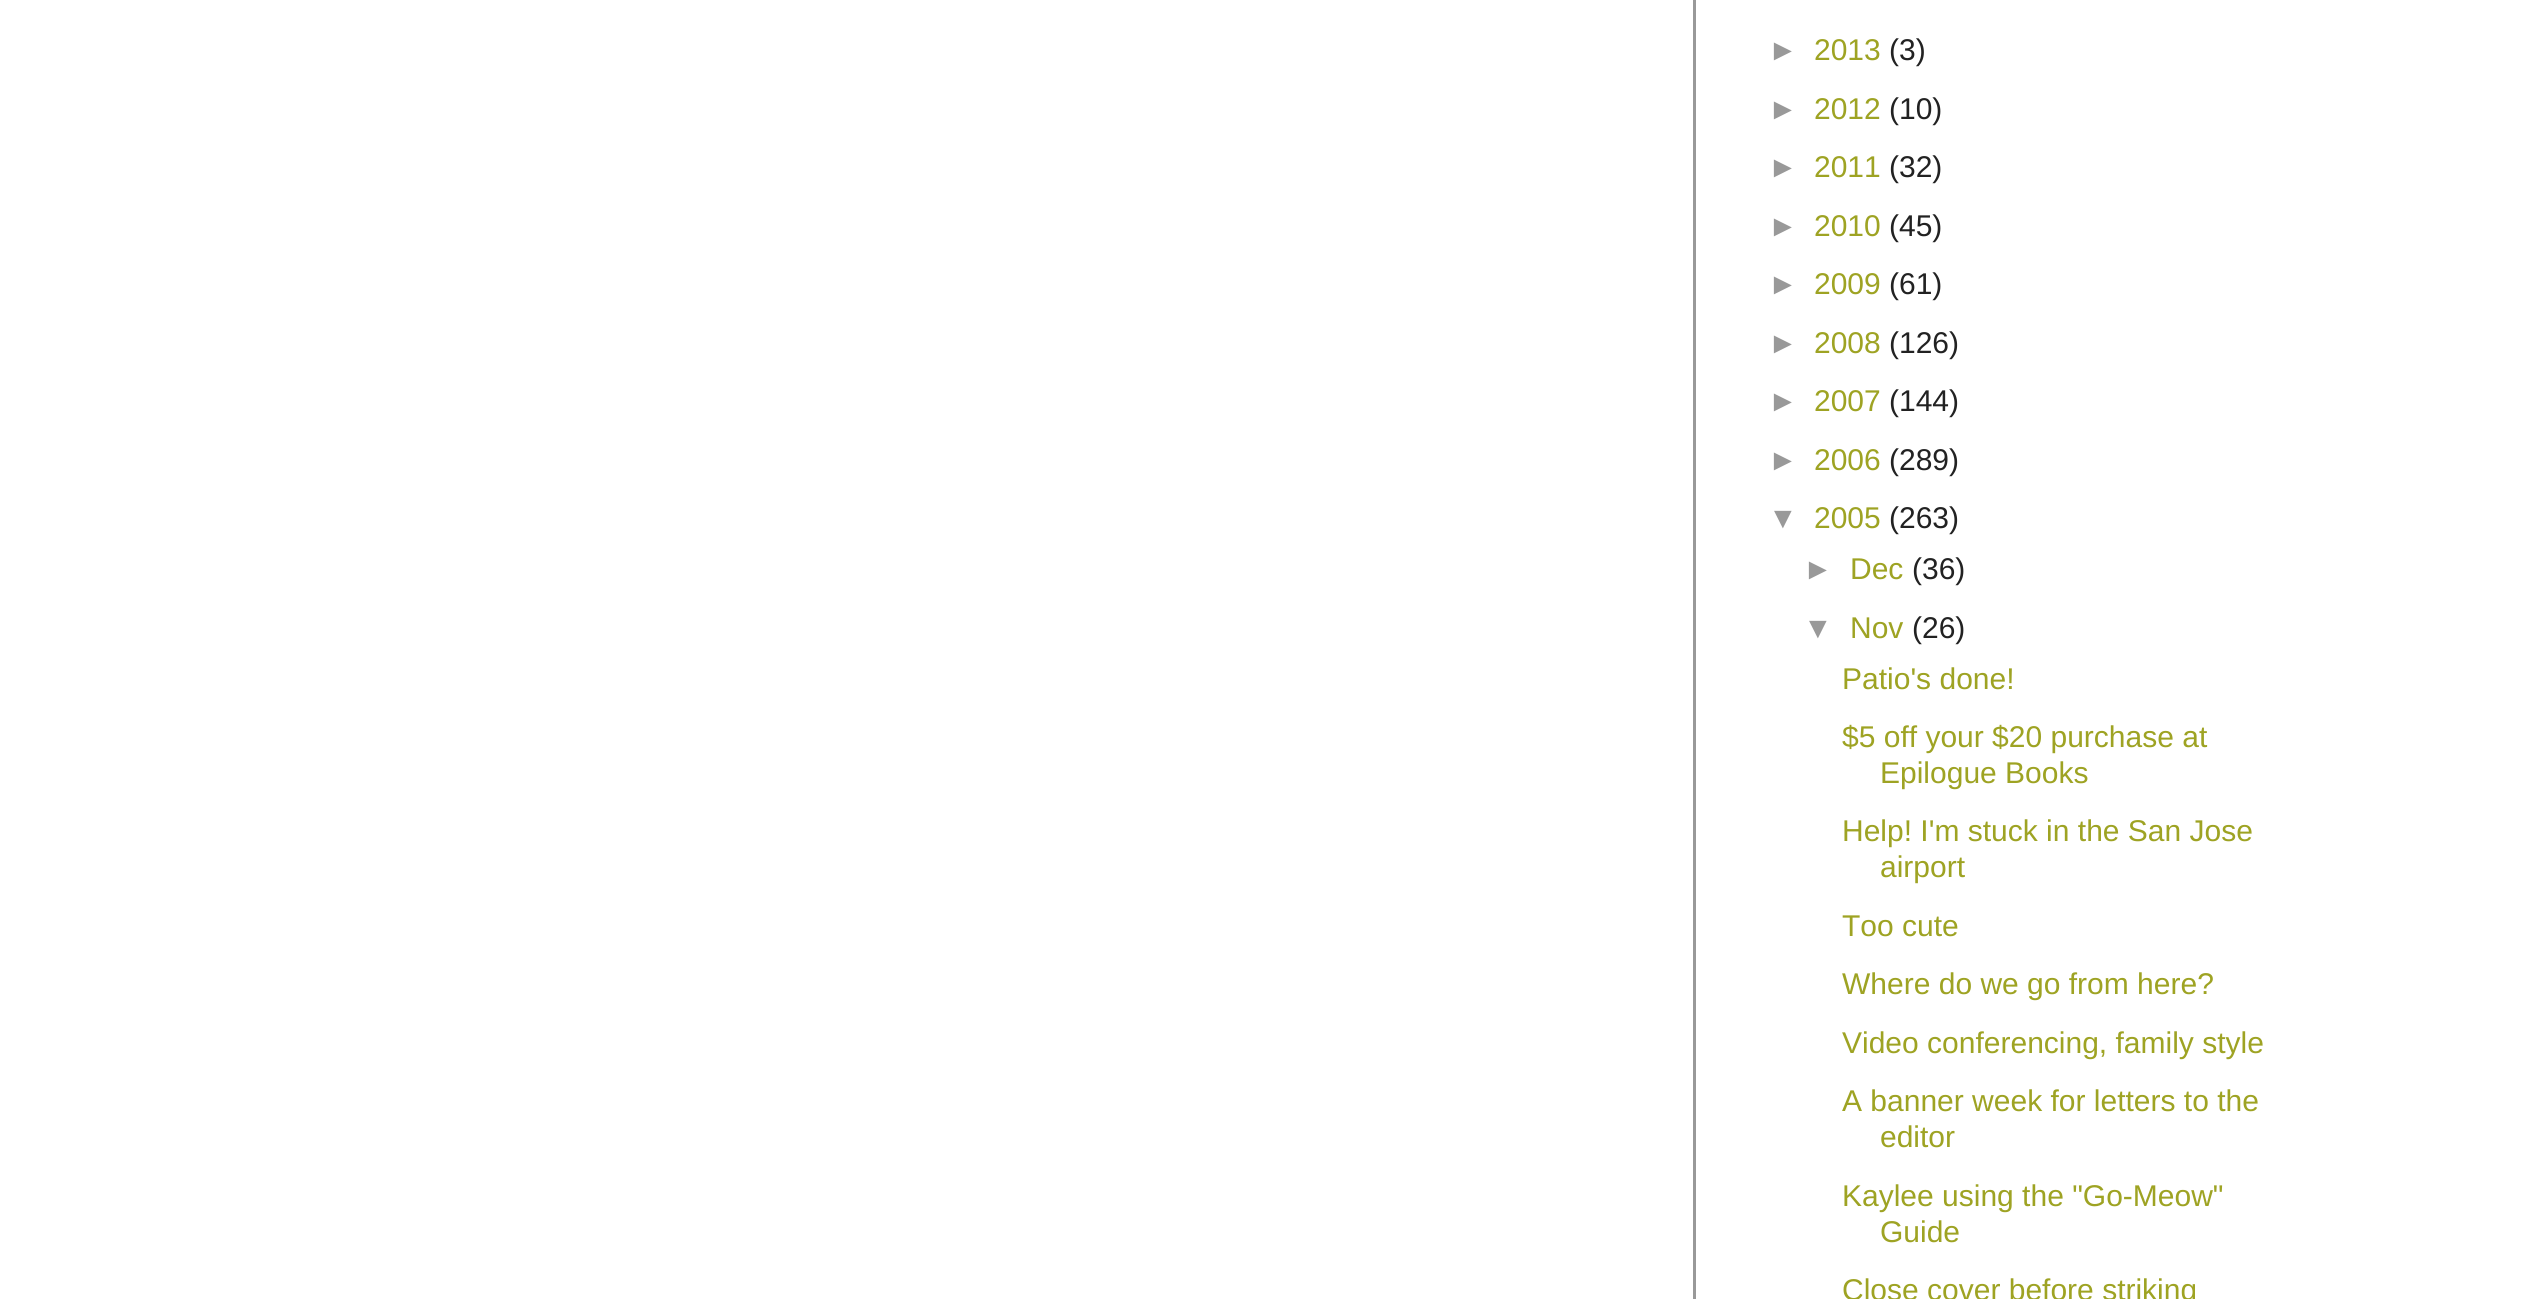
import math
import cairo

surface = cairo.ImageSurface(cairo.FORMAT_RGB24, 2534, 1299)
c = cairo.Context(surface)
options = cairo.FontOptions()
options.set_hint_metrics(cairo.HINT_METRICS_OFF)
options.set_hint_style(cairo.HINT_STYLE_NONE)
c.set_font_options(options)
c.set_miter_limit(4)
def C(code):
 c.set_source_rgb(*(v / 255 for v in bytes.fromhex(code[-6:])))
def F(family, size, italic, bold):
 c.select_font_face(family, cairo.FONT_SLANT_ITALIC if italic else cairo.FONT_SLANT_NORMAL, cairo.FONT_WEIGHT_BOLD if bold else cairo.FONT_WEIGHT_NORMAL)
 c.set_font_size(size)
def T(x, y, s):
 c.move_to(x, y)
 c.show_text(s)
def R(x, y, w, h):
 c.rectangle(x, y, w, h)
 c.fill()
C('ffffff')
c.paint()
C('999999')
R(1693,0,3,1299)
F('Liberation Sans',30,0,0)
T(1768,60,'►')
C('9ea323')
T(1814,60,'2013')
C('222222')
T(1889,60,'(3)')
C('999999')
T(1768,119,'►')
C('9ea323')
T(1814,119,'2012')
C('222222')
T(1889,119,'(10)')
C('999999')
T(1768,177,'►')
C('9ea323')
T(1814,177,'2011')
C('222222')
T(1889,177,'(32)')
C('999999')
T(1768,236,'►')
C('9ea323')
T(1814,236,'2010')
C('222222')
T(1889,236,'(45)')
C('999999')
T(1768,294,'►')
C('9ea323')
T(1814,294,'2009')
C('222222')
T(1889,294,'(61)')
C('999999')
T(1768,353,'►')
C('9ea323')
T(1814,353,'2008')
C('222222')
T(1889,353,'(126)')
C('999999')
T(1768,411,'►')
C('9ea323')
T(1814,411,'2007')
C('222222')
T(1889,411,'(144)')
C('999999')
T(1768,470,'►')
C('9ea323')
T(1814,470,'2006')
C('222222')
T(1889,470,'(289)')
C('999999')
T(1768,528,'▼')
C('9ea323')
T(1814,528,'2005')
C('222222')
T(1889,528,'(263)')
C('999999')
T(1803,579,'►')
C('9ea323')
T(1850,579,'Dec')
C('222222')
T(1912,579,'(36)')
C('999999')
T(1803,638,'▼')
C('9ea323')
T(1850,638,'Nov')
C('222222')
T(1912,638,'(26)')
C('9ea323')
T(1842,689,'Patio\'s done!')
T(1842,747,'$5 off your $20 purchase at')
T(1880,783,'Epilogue Books')
T(1842,841,'Help! I\'m stuck in the San Jose')
T(1880,877,'airport')
T(1842,936,'Too cute')
T(1842,994,'Where do we go from here?')
T(1842,1053,'Video conferencing, family style')
T(1842,1111,'A banner week for letters to the')
T(1880,1147,'editor')
T(1842,1206,'Kaylee using the "Go-Meow"')
T(1880,1242,'Guide')
T(1842,1300,'Close cover before striking')
surface.write_to_png('o.png')
